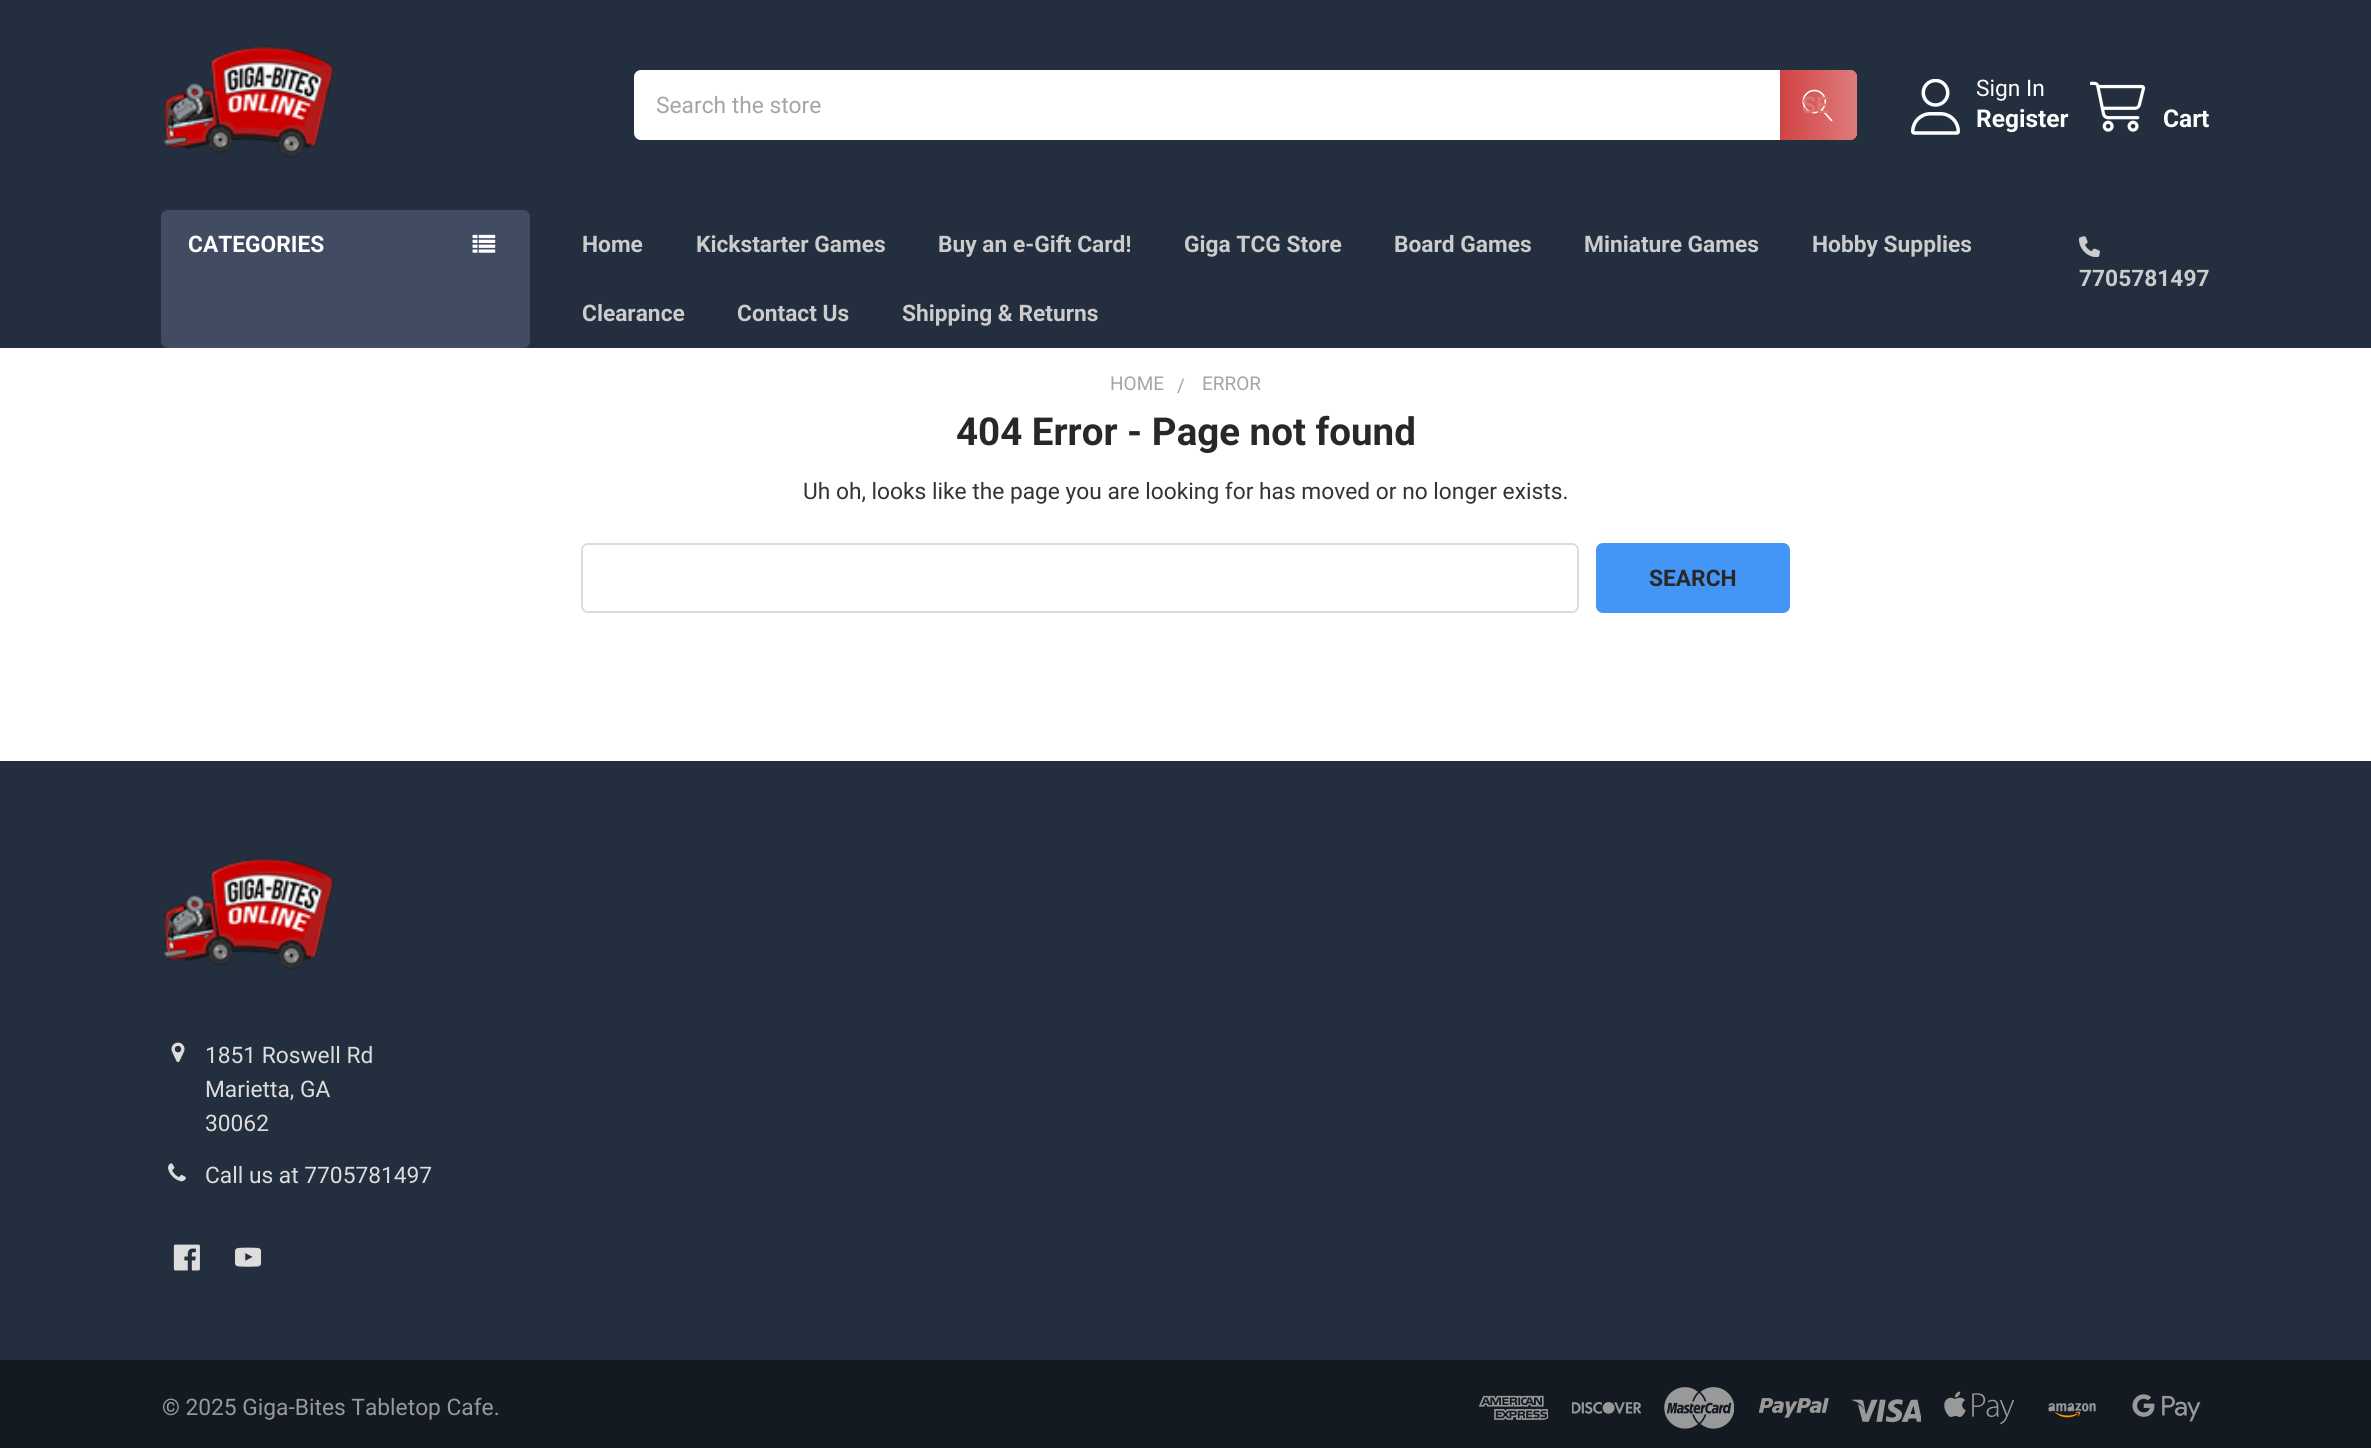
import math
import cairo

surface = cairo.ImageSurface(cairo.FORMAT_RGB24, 2371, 1448)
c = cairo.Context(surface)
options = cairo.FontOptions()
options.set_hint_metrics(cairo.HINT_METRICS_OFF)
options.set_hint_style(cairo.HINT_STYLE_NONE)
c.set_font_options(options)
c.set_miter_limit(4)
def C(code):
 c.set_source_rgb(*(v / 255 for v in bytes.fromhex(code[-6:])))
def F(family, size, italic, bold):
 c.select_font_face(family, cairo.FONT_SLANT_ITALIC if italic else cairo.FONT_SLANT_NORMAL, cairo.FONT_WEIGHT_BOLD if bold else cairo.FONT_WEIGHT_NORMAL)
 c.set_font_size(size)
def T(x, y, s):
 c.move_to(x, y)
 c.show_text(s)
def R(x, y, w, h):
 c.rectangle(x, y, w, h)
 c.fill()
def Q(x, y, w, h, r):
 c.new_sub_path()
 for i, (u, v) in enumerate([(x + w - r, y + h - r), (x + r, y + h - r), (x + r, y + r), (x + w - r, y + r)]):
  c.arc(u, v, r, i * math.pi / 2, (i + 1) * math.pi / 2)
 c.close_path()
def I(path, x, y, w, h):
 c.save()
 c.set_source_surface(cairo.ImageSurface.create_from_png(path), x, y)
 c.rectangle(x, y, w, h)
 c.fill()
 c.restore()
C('ffffff')
c.paint()
C('232f3e')
R(0,0,2371,348)
I('1.png',164,46,171,112)
C('ffffff')
Q(634,70,1223,70,7)
c.fill()
gradient = cairo.LinearGradient(1780,105,1857,105)
gradient.add_color_stop_rgba(0,0.82,0.263,0.263,1)
gradient.add_color_stop_rgba(1,0.82,0.263,0.263,.7)
c.set_source(gradient)
c.new_path()
c.move_to(1780,70)
c.line_to(1850,70)
c.curve_to(1854,70,1857,73,1857,77)
c.line_to(1857,133)
c.curve_to(1857,137,1854,140,1850,140)
c.line_to(1780,140)
c.close_path()
c.fill()
I('2.png',1802,89,31,33)
F('Roboto',22.75,0,0)
C('a5a5a5')
T(656,113,'Search the store')
F('Roboto',22.75,0,1)
C('dd7575')
T(1802,113,'SE')
I('3.png',1911,79,49,56)
F('Roboto',22.75,0,0)
C('ffffff')
T(1976,96,'Sign In')
F('Roboto',24.5,0,1)
T(1976,127,'Register')
I('4.png',2090,81,56,51)
T(2163,127,'Cart')
C('414c62')
Q(161,210,369,138,7)
c.fill()
F('Roboto',22.75,0,1)
C('ffffff')
T(188,252,'CATEGORIES')
I('5.png',472,234,24,19)
C('cccccc')
T(582,252,'Home')
T(696,252,'Kickstarter Games')
T(938,252,'Buy an e-Gift Card!')
T(1184,252,'Giga TCG Store')
T(1394,252,'Board Games')
T(1584,252,'Miniature Games')
T(1812,252,'Hobby Supplies')
T(582,321,'Clearance')
T(737,321,'Contact Us')
T(902,321,'Shipping & Returns')
I('6.png',2079,236,21,21)
T(2079,286,'7705781497')
F('Roboto',19,0,0)
C('a5a5a5')
T(1110,390,'HOME')
T(1177,392,'/')
T(1202,390,'ERROR')
F('Roboto',38.5,0,1)
C('282828')
T(956,445,'404 Error - Page not found')
F('Roboto',22.75,0,0)
C('333333')
T(803,499,'Uh oh, looks like the page you are looking for has moved or no longer exists.')
Q(582,544,996,68,6)
C('dcdcdc')
c.stroke()
C('4496f6')
Q(1597,544,192,68,6)
c.fill_preserve()
c.stroke()
F('Roboto',22.75,0,1)
C('282828')
T(1649,586,'SEARCH')
C('232f3e')
R(0,761,2371,599)
I('1.png',164,858,171,112)
I('7.png',171,1042,14,21)
F('Roboto',22.75,0,0)
C('dddddd')
T(205,1063,'1851 Roswell Rd')
T(205,1097,'Marietta, GA')
T(205,1131,'30062')
I('8.png',168,1163,18,19)
T(205,1183,'Call us at 7705781497')
I('9.png',173,1244,27,27)
I('10.png',235,1247,26,20)
C('131a22')
R(0,1360,2371,88)
C('999999')
T(162,1415,'© 2025 Giga-Bites Tabletop Cafe.')
I('11.png',1479,1395,70,25)
I('12.png',1572,1402,69,12)
I('13.png',1664,1387,70,42)
I('14.png',1759,1398,70,20)
I('15.png',1852,1399,69,24)
I('16.png',1944,1391,70,34)
I('17.png',2048,1403,48,15)
I('18.png',2132,1394,69,28)
surface.write_to_png('o.png')
